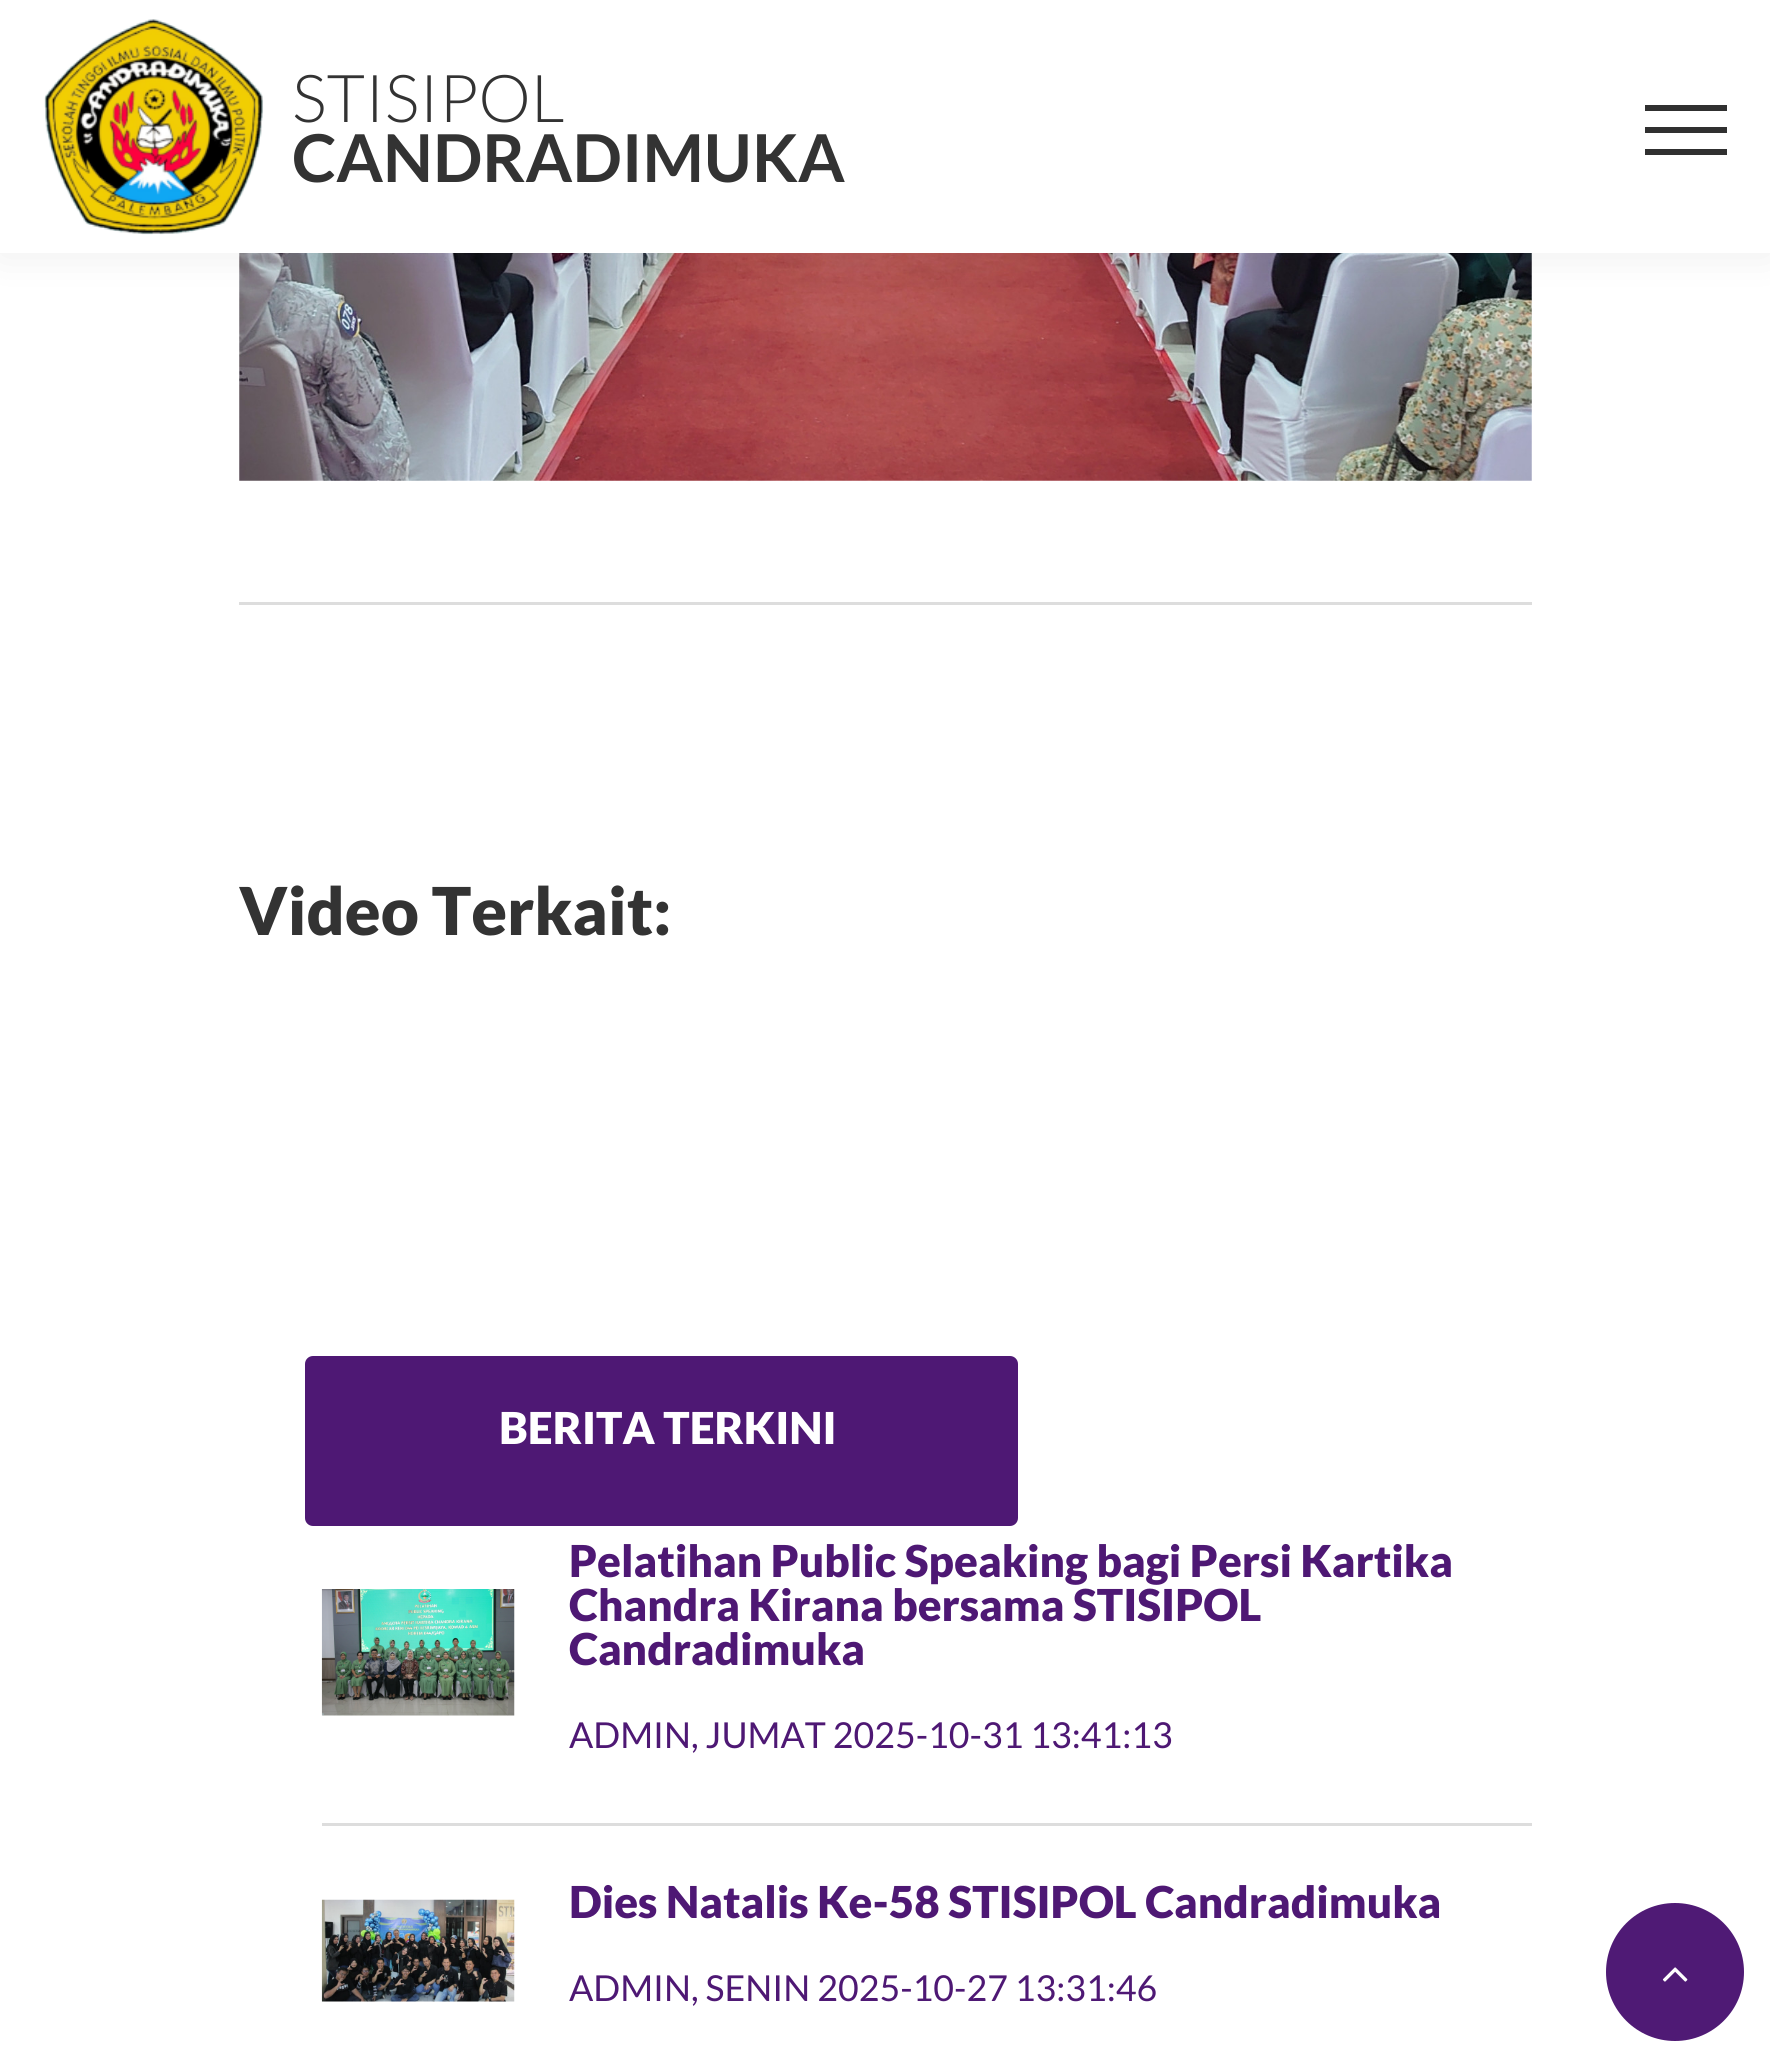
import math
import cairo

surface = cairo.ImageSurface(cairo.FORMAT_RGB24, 1770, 2066)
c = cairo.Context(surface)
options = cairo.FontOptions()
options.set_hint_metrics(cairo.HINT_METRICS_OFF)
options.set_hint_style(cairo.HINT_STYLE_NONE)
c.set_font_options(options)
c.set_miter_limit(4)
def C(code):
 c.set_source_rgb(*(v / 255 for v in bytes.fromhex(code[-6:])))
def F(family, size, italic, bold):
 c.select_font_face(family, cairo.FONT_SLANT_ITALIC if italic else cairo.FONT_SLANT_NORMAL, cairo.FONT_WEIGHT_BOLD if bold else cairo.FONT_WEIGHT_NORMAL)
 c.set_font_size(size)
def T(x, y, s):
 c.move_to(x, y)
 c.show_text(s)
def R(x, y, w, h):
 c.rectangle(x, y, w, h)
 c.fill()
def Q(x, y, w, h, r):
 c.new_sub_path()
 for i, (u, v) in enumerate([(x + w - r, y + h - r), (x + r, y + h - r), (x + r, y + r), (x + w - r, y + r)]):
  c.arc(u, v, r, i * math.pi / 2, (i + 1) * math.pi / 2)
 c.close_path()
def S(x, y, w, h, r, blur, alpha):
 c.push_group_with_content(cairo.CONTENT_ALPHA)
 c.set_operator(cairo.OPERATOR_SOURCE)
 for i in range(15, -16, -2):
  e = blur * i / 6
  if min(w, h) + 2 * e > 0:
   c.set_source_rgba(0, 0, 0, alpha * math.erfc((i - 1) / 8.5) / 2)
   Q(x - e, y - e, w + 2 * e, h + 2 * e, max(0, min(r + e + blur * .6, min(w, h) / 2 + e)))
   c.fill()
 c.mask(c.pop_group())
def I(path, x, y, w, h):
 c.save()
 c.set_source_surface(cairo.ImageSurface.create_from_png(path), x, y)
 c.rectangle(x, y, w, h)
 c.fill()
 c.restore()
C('ffffff')
c.paint()
I('2.png',239,253,1293,228)
C('000000')
S(0,3,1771,253,0,20.5,.07)
C('ffffff')
R(0,0,1770,253)
I('1.png',44,19,220,216)
F('Lato Light',66,0,0)
C('333333')
T(292,122,'STISIPOL')
F('Lato',66,0,1)
T(292,182,'CANDRADIMUKA')
C('303030')
R(1645,127,82,6)
R(1645,105,82,6)
R(1645,149,82,6)
C('dddddd')
R(239,602,1293,3)
F('Lato Black',66,0,0)
C('333333')
T(239,935,'Video Terkait:')
C('4e1874')
Q(305,1356,713,170,8)
c.fill()
F('Lato Black',44,0,0)
C('ffffff')
T(499,1444,'BERITA TERKINI')
I('3.png',321,1589,194,127)
C('4e1874')
T(569,1577,'Pelatihan Public Speaking bagi Persi Kartika')
T(569,1621,'Chandra Kirana bersama STISIPOL')
T(569,1665,'Candradimuka')
F('Lato',35.75,0,0)
T(569,1748,'ADMIN, JUMAT 2025-10-31 13:41:13')
C('dddddd')
R(322,1823,1210,3)
I('4.png',321,1899,194,103)
F('Lato Black',44,0,0)
C('4e1874')
T(569,1918,'Dies Natalis Ke-58 STISIPOL Candradimuka')
F('Lato',35.75,0,0)
T(569,2001,'ADMIN, SENIN 2025-10-27 13:31:46')
C('4f1a75')
c.new_path()
c.arc(1675,1972,69,0,2 * math.pi)
c.fill()
I('5.png',1662,1967,26,15)
surface.write_to_png('o.png')
